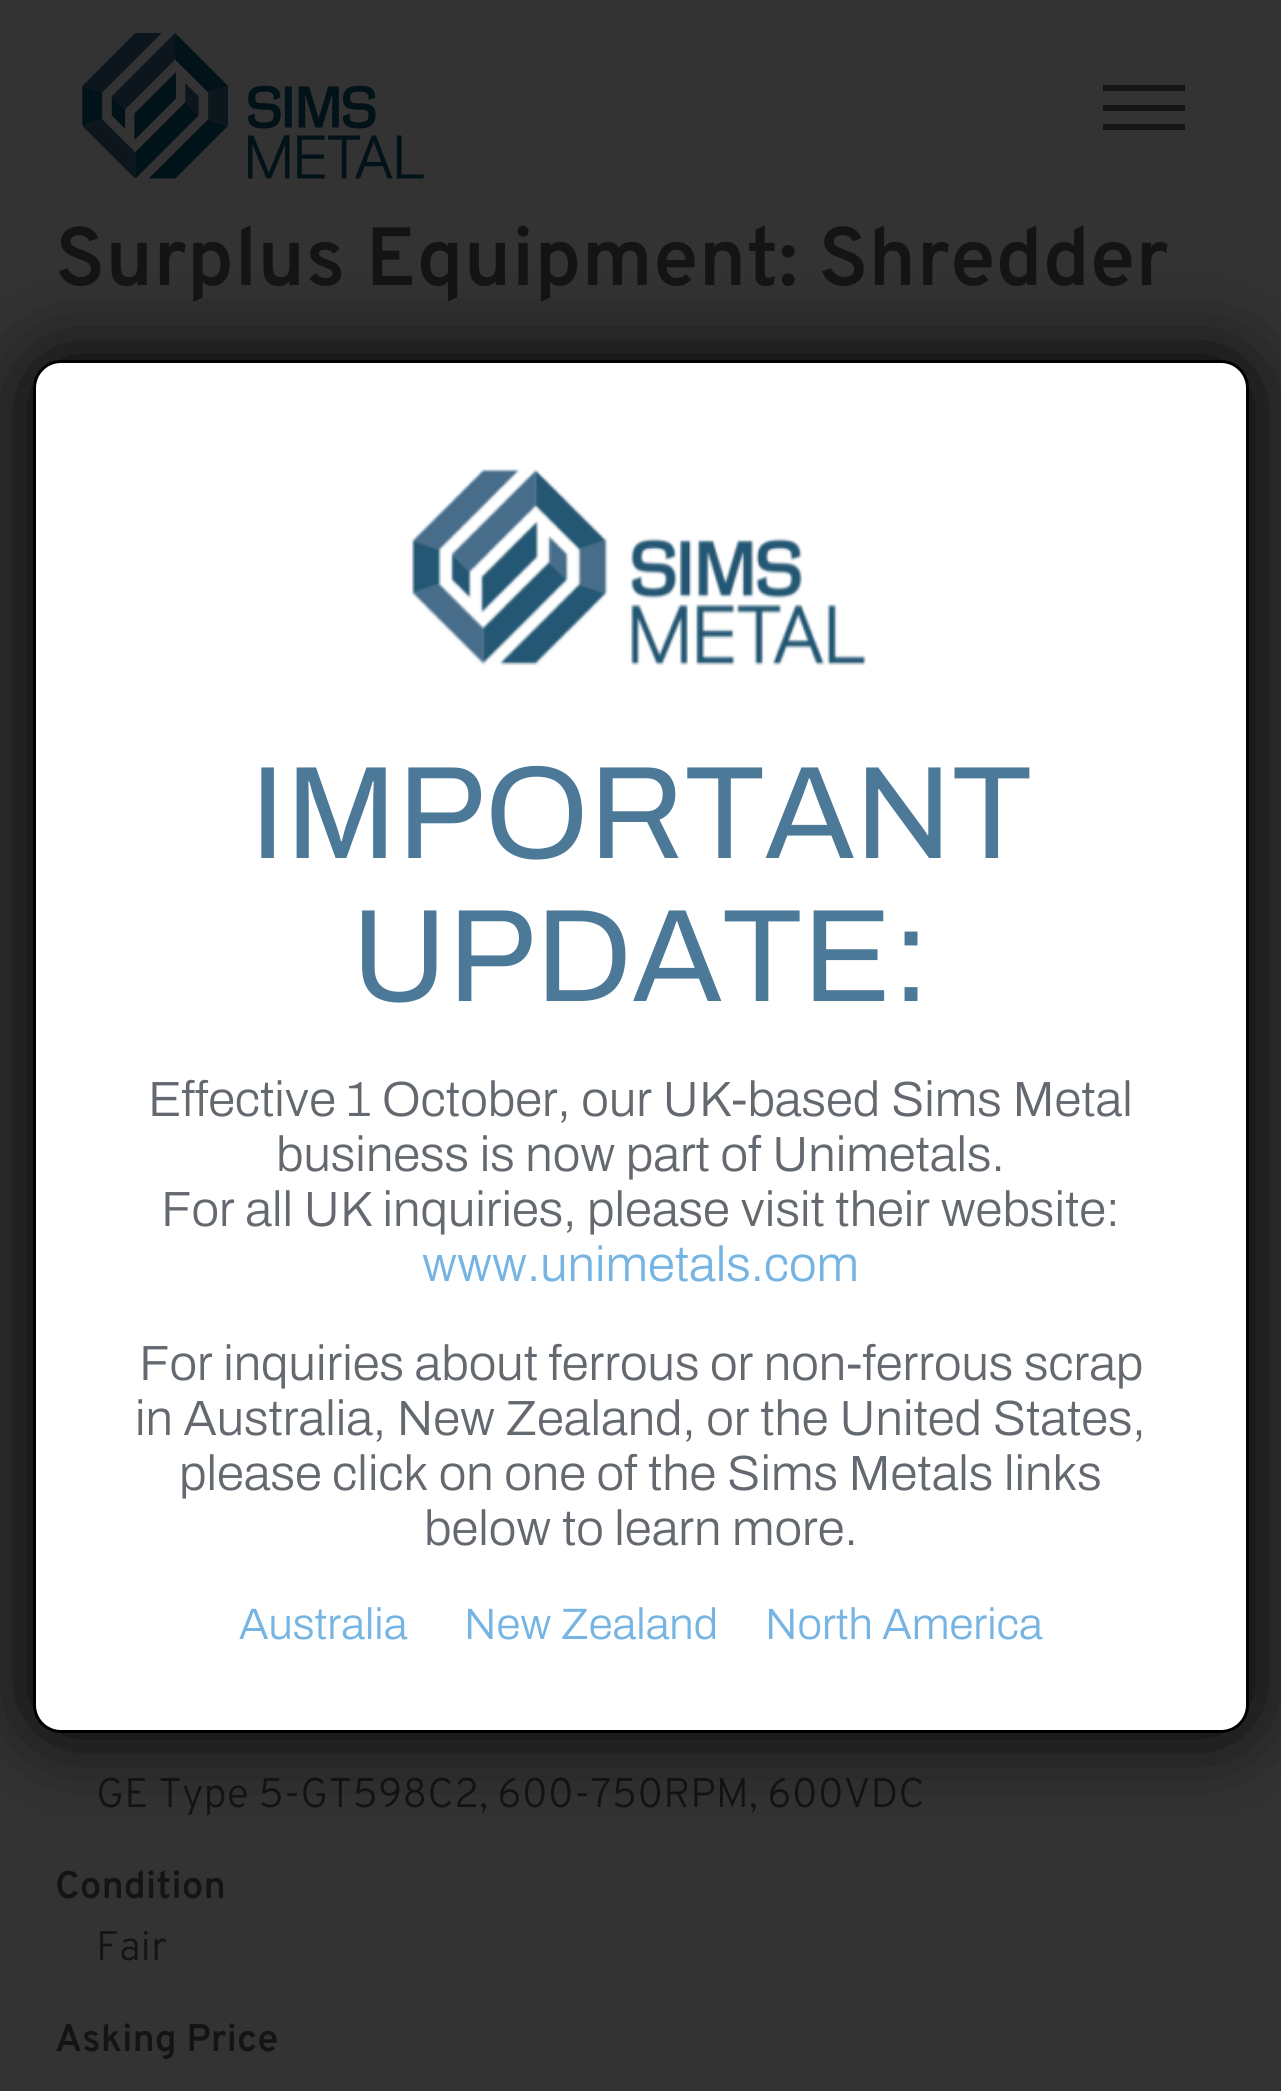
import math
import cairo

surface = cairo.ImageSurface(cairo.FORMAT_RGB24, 1281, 2091)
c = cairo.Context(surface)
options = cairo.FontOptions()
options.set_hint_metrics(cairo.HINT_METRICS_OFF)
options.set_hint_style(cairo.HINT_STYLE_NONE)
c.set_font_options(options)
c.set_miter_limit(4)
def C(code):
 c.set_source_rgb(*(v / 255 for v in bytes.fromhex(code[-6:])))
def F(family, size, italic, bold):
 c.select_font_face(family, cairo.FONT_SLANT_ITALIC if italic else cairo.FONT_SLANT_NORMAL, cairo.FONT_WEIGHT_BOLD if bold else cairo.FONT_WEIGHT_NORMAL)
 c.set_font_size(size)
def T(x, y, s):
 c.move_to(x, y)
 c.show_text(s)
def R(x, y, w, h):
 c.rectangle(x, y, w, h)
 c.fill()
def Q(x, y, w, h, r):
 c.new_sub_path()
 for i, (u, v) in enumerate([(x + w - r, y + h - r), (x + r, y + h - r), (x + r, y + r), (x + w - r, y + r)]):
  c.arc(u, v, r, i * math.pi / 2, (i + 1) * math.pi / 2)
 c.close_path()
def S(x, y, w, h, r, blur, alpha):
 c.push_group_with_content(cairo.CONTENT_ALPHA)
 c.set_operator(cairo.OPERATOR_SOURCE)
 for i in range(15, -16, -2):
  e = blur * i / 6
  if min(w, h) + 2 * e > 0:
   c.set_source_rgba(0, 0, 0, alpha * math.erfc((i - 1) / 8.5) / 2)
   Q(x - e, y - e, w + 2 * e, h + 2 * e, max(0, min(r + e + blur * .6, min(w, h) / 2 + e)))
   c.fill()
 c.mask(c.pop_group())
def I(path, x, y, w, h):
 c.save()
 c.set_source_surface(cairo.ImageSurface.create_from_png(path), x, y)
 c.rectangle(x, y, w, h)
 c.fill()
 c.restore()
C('333333')
c.paint()
I('1.png',82,33,342,146)
C('141415')
R(1103,105,82,6)
R(1103,85,82,6)
R(1103,124,82,6)
F('Overpass SemiBold',82.5,0,0)
T(55,285,'Surplus Equipment: Shredder')
F('Overpass Light',41.25,0,0)
T(96,1807,'GE Type 5-GT598C2, 600-750RPM, 600VDC')
F('Overpass SemiBold',38.5,0,0)
T(55,1898,'Condition')
F('Overpass Light',41.25,0,0)
T(96,1960,'Fair')
F('Overpass SemiBold',38.5,0,0)
T(55,2051,'Asking Price')
C('020202')
S(33,360,1216,1373,28,41,1)
C('ffffff')
Q(34.5,361.5,1213,1370,26.5)
c.fill_preserve()
C('000000')
c.set_line_width(3)
c.stroke()
I('2.png',410,469,456,197)
F('Archivo',132,0,0)
C('4c7998')
T(250,858,'IMPORTANT')
T(351,1001,'UPDATE:')
F('Archivo Light',49.5,0,0)
C('64696f')
T(148,1116,'Effective 1 October, our UK-based Sims Metal')
T(276,1171,'business is now part of Unimetals.')
T(161,1226,'For all UK inquiries, please visit their website:')
C('75b4e3')
T(422,1281,'www.unimetals.com')
C('64696f')
T(139,1380,'For inquiries about ferrous or non-ferrous scrap')
T(135,1435,'in Australia, New Zealand, or the United States,')
T(179,1490,'please click on one of the Sims Metals links')
T(424,1545,'below to learn more.')
F('Archivo Light',44,0,0)
C('75b4e3')
T(239,1639,'Australia')
T(464,1639,'New Zealand')
T(765,1639,'North America')
surface.write_to_png('o.png')
